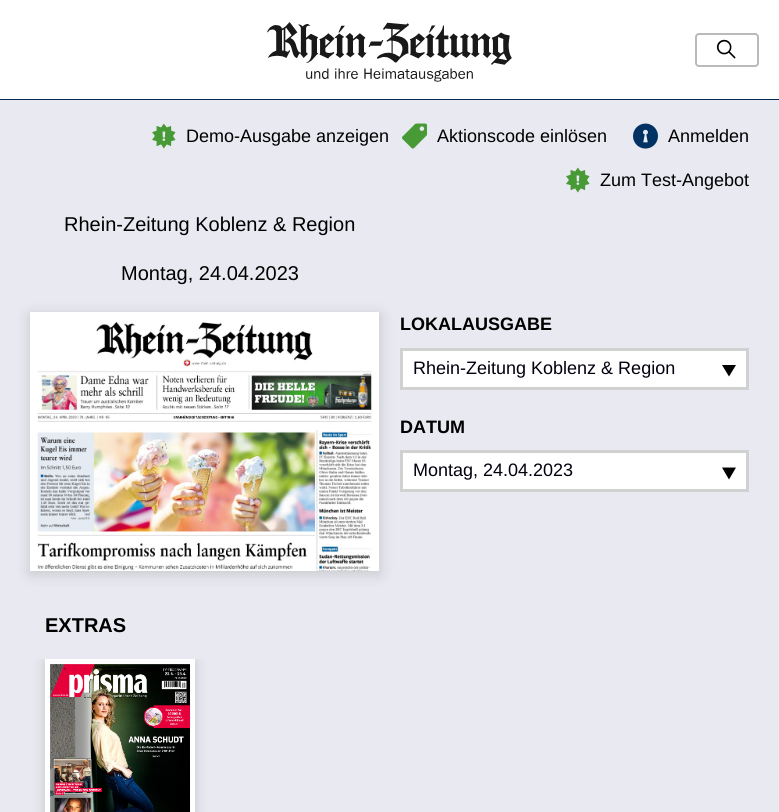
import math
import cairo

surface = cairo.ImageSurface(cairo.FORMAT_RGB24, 779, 812)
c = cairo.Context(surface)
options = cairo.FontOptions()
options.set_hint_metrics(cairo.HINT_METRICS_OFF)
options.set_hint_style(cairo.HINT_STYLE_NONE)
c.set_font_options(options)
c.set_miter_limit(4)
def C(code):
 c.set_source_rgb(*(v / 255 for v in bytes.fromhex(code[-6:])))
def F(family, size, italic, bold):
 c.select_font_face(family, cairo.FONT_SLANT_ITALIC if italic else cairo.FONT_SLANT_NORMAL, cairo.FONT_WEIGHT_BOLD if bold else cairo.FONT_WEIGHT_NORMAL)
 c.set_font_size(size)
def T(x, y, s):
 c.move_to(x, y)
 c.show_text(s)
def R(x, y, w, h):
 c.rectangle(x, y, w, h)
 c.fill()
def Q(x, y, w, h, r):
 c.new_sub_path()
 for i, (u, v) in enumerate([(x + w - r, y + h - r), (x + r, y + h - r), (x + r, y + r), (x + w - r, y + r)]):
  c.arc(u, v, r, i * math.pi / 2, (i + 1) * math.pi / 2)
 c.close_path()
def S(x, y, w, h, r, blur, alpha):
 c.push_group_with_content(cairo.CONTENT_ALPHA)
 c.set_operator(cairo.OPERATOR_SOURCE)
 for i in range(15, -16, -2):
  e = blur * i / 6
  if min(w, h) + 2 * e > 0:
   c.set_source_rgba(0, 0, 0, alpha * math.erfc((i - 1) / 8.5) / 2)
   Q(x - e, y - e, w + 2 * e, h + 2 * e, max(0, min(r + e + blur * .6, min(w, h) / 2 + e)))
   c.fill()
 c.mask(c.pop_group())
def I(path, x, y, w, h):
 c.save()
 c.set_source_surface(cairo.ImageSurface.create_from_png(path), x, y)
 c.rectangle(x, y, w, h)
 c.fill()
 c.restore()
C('e9e9f1')
c.paint()
C('ffffff')
R(0,0,779,99)
C('002b55')
R(0,99,779,1)
I('1.png',267,22,245,60)
Q(696,34,62,32,3)
C('bababa')
c.stroke()
I('2.png',716,39,20,20)
I('3.png',152,123,24,26)
F('Liberation Sans',18,0,0)
C('000000')
T(186,142,'Demo-Ausgabe anzeigen')
I('4.png',402,123,25,26)
T(437,142,'Aktionscode einlösen')
I('5.png',633,123,25,26)
T(668,142,'Anmelden')
I('3.png',566,167,24,26)
T(600,186,'Zum Test-Angebot')
F('Liberation Sans',20,0,0)
T(64,231,'Rhein-Zeitung Koblenz & Region')
T(121,280,'Montag, 24.04.2023')
C('000000')
S(30,315,350,259,0,7.5,.15)
I('6.png',30,312,349,259)
F('Liberation Sans',18,0,1)
C('000000')
T(400,330,'LOKALAUSGABE')
C('ffffff')
c.rectangle(401.5,349.5,346,39)
c.fill_preserve()
C('d1d1d1')
c.set_line_width(3)
c.stroke()
F('Liberation Sans',18,0,0)
C('00000f')
T(413,374,'Rhein-Zeitung Koblenz & Region')
C('000000')
c.new_path()
c.move_to(722,365)
c.line_to(736,365)
c.line_to(729,376.5)
c.close_path()
c.fill()
F('Liberation Sans',18,0,1)
T(400,433,'DATUM')
C('ffffff')
c.rectangle(401.5,451.5,346,39)
c.fill_preserve()
C('d1d1d1')
c.stroke()
F('Liberation Sans',18,0,0)
C('00000f')
T(413,476,'Montag, 24.04.2023')
C('000000')
c.new_path()
c.move_to(722,467.5)
c.line_to(736,467.5)
c.line_to(729,479.5)
c.close_path()
c.fill()
F('Liberation Sans',20,0,1)
T(45,632,'EXTRAS')
c.save()
c.rectangle(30,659,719,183)
c.clip()
C('000000')
S(45,662,150,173,0,7.5,.15)
c.restore()
I('7.png',45,659,150,153)
surface.write_to_png('o.png')
